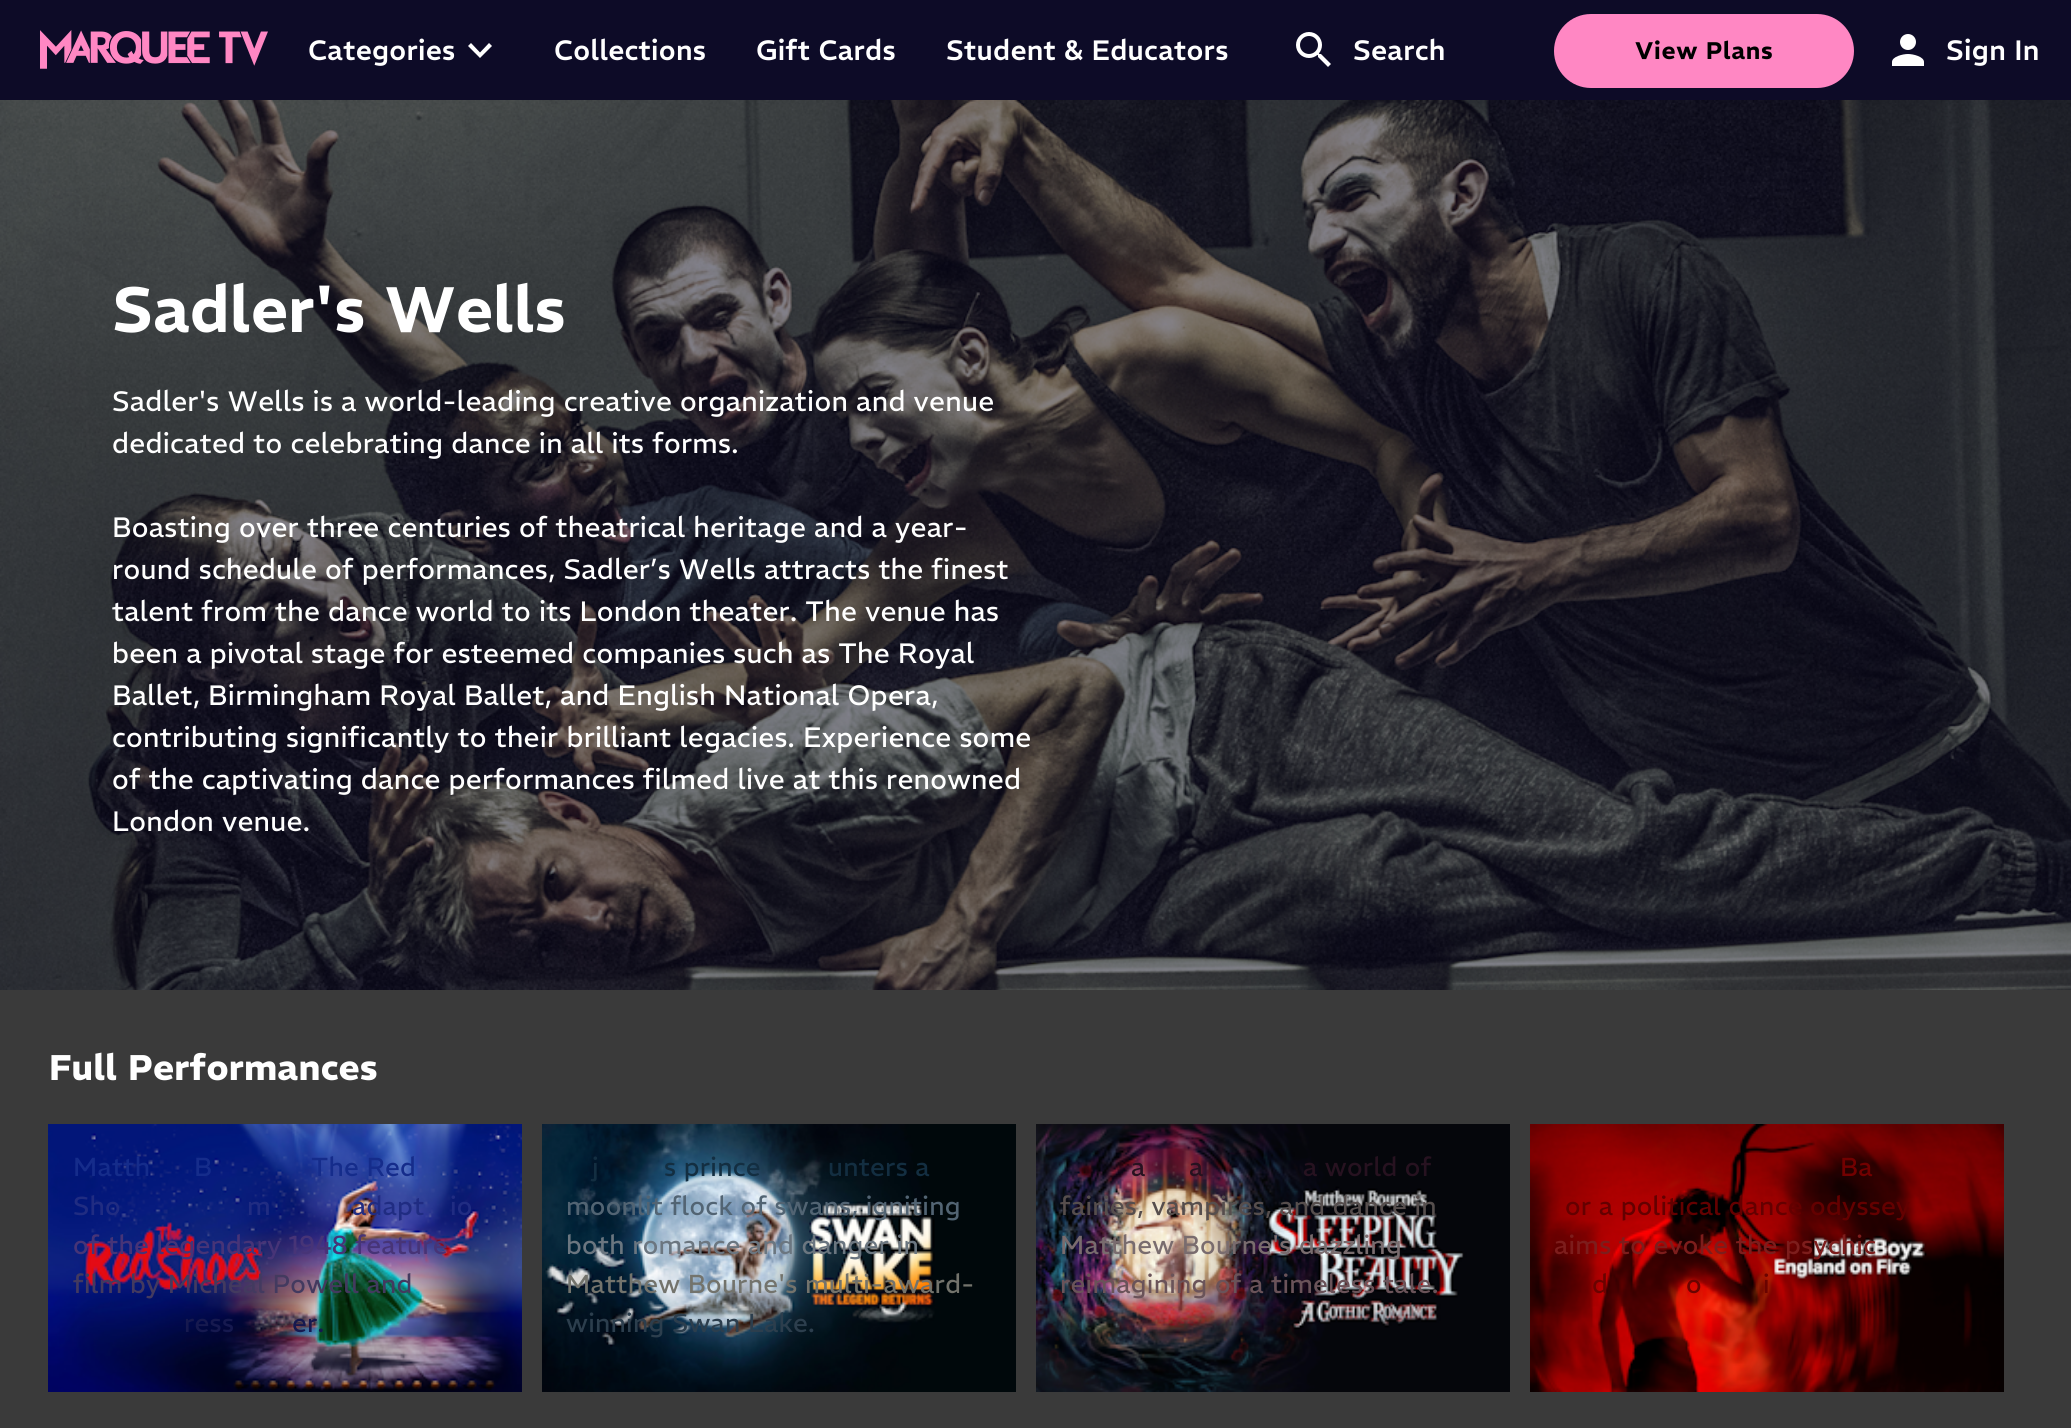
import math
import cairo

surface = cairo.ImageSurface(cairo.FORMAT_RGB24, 2071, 1428)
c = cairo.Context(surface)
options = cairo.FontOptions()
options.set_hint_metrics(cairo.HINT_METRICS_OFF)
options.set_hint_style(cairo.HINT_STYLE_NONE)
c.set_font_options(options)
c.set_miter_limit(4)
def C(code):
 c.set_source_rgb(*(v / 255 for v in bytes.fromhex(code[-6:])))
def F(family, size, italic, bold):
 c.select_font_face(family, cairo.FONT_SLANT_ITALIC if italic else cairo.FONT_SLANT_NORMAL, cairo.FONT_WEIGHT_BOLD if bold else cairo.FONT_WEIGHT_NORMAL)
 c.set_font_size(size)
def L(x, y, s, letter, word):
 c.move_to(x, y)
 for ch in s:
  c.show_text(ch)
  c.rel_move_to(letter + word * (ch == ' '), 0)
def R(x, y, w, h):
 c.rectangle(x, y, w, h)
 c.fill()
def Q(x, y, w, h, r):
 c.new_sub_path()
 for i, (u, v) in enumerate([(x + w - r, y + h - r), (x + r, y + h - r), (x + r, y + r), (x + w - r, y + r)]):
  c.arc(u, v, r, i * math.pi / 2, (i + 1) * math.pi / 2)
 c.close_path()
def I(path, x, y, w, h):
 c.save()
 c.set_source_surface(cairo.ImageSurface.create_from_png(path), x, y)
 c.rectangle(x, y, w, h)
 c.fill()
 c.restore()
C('0d0b27')
c.paint()
I('1.png',40,30,228,39)
F('REM Medium',28,0,0)
C('ffffff')
L(308,60,'Categories',.3,0)
c.new_path()
c.move_to(489,43)
c.line_to(480,52.5)
c.line_to(471,43)
c.line_to(468,46)
c.line_to(480,58)
c.line_to(492,46)
c.close_path()
c.fill()
L(554,60,'Collections',.3,0)
L(756,60,'Gift Cards',.3,0)
L(946,60,'Student & Educators',.3,0)
I('2.png',1296,32,35,35)
L(1353,60,'Search',.3,0)
C('ff87c3')
Q(1554,14,300,74,37)
c.fill()
F('REM SemiBold',24,0,0)
C('000000')
L(1635,59,'View Plans',.75,0)
I('3.png',1892,34,32,32)
F('REM Medium',28,0,0)
C('ffffff')
L(1946,60,'Sign In',.3,0)
I('4.png',0,100,2071,890)
F('REM SemiBold',64,0,0)
L(112,332,'Sadler\'s Wells',.3,0)
F('REM',28,0,0)
L(112,411,'Sadler\'s Wells is a world-leading creative organization and venue',.3,0)
L(112,453,'dedicated to celebrating dance in all its forms.',.3,0)
L(112,537,'Boasting over three centuries of theatrical heritage and a year-',.3,0)
L(112,579,'round schedule of performances, Sadler’s Wells attracts the finest',.3,0)
L(112,621,'talent from the dance world to its London theater. The venue has',.3,0)
L(112,663,'been a pivotal stage for esteemed companies such as The Royal',.3,0)
L(112,705,'Ballet, Birmingham Royal Ballet, and English National Opera,',.3,0)
L(112,747,'contributing significantly to their brilliant legacies. Experience some',.3,0)
L(112,789,'of the captivating dance performances filmed live at this renowned',.3,0)
L(112,831,'London venue.',.3,0)
C('3a3a3a')
R(0,990,2071,438)
F('REM',35.6,0,1)
C('ffffff')
L(49,1080,'Full Performances',.3,0)
I('5.png',48,1124,474,268)
F('REM',26,0,0)
C('152c8b')
L(73,1176,'Matth',.3,0)
L(194,1176,'B',.3,0)
L(311,1176,'The Red',.3,0)
C('202c82')
L(73,1215,'Sho',.3,0)
L(247,1215,'m',.3,0)
L(352,1215,'adapt',.3,0)
L(450,1215,'io',.3,0)
C('473477')
L(73,1254,'of the legendary 1948 feature',.3,0)
C('433a5f')
L(73,1293,'film by Micheal Powell and',.3,0)
C('16194f')
L(184,1332,'ress',.3,0)
L(292,1332,'er.',.3,0)
I('6.png',542,1124,474,268)
C('132e41')
L(592,1176,'j',.3,0)
L(664,1176,'s prince',.3,0)
L(828,1176,'unters a',.3,0)
C('526473')
L(566,1215,'moonlit flock of swans, igniting',.3,0)
C('6b7680')
L(566,1254,'both romance and danger in',.3,0)
C('73736c')
L(566,1293,'Matthew Bourne\'s multi-award-',.3,0)
C('2c3e4d')
L(566,1332,'winning Swan Lake.',.3,0)
I('7.png',1036,1124,474,268)
C('271220')
L(1131,1176,'a',.3,0)
L(1189,1176,'a',.3,0)
L(1303,1176,'a world of',.3,0)
C('564e4d')
L(1060,1215,'fairies, vampires, and dance in',.3,0)
C('796c6e')
L(1060,1254,'Matthew Bourne\'s dazzling',.3,0)
C('6a5359')
L(1060,1293,'reimagining of a timeless tale.',.3,0)
I('8.png',1530,1124,474,268)
C('720000')
L(1840,1176,'Ba',.3,0)
C('640000')
L(1565,1215,'or a political dance odyssey',.3,0)
C('7d1d1c')
L(1554,1254,'aims to evoke the psychic',.3,0)
C('6a0300')
L(1592,1293,'d',.3,0)
L(1686,1293,'o',.3,0)
L(1763,1293,'i',.3,0)
surface.write_to_png('o.png')
